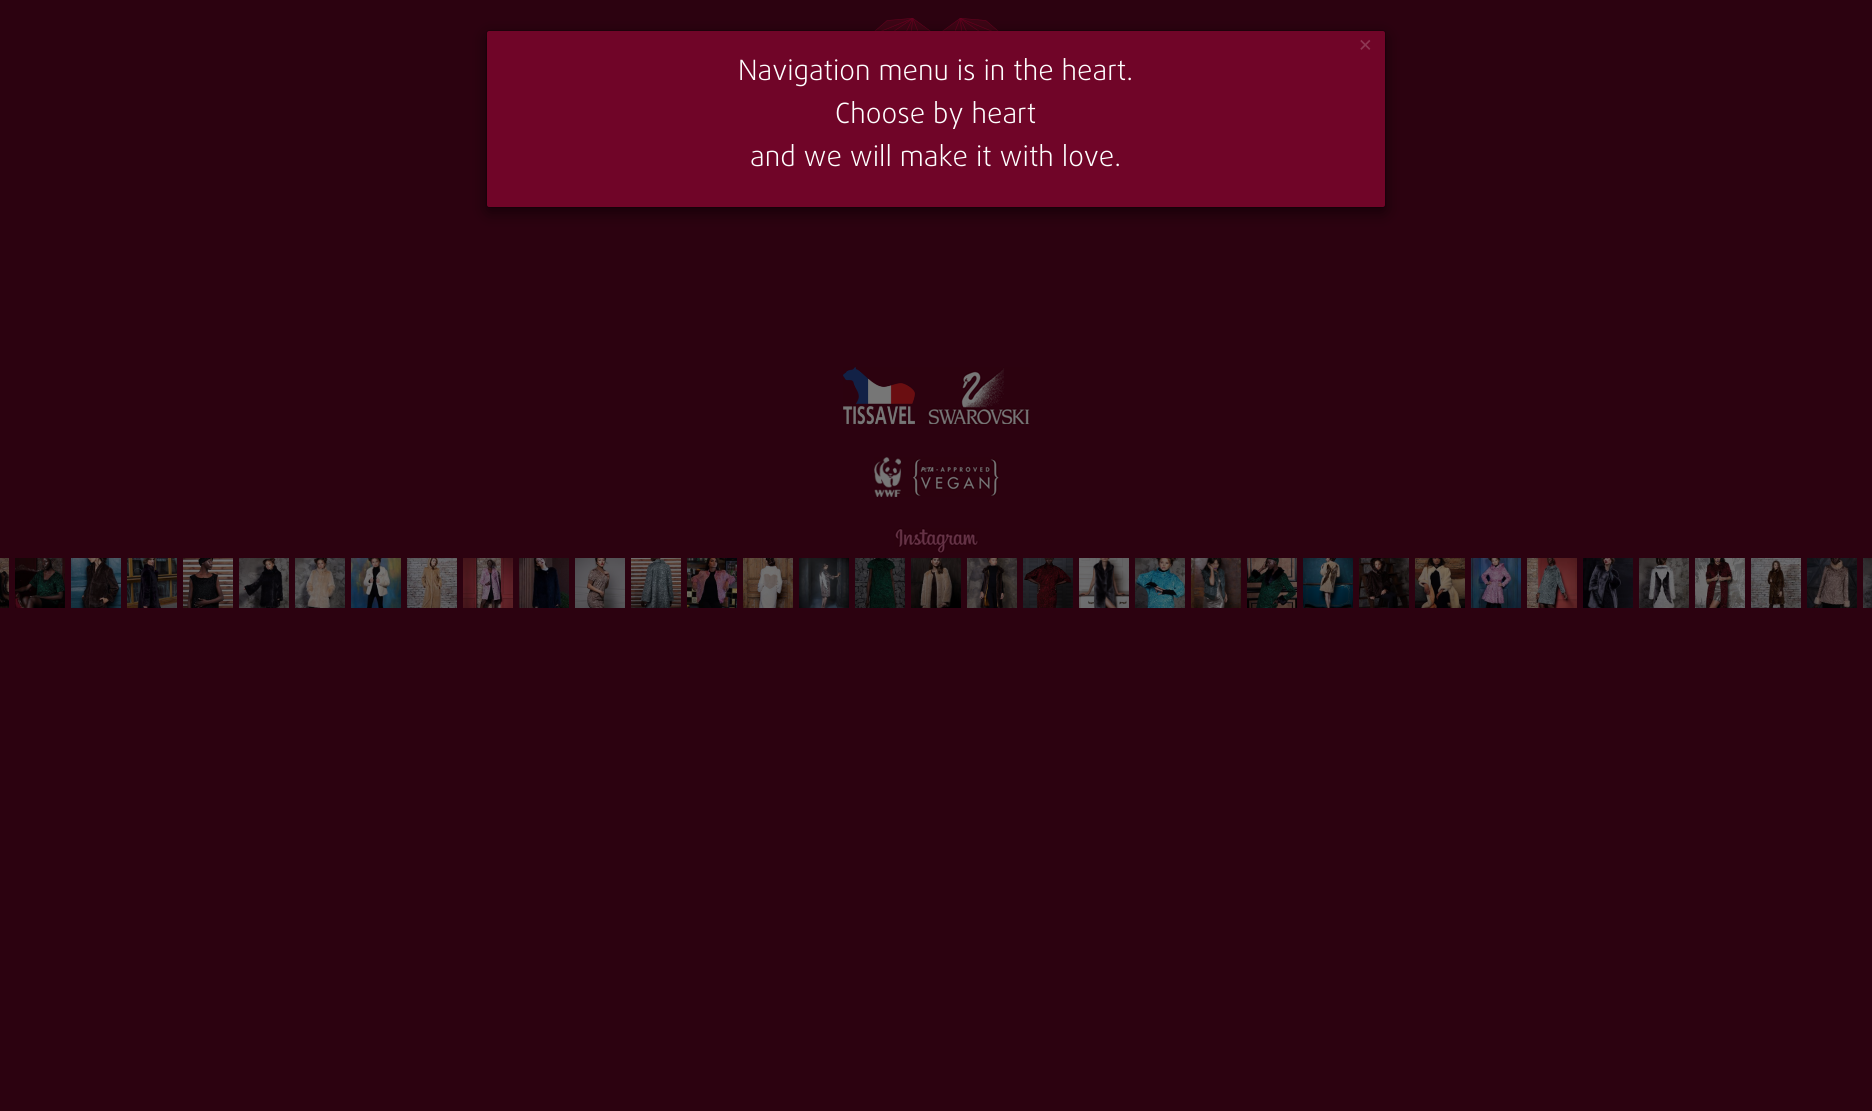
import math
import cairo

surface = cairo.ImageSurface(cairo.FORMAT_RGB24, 1872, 1111)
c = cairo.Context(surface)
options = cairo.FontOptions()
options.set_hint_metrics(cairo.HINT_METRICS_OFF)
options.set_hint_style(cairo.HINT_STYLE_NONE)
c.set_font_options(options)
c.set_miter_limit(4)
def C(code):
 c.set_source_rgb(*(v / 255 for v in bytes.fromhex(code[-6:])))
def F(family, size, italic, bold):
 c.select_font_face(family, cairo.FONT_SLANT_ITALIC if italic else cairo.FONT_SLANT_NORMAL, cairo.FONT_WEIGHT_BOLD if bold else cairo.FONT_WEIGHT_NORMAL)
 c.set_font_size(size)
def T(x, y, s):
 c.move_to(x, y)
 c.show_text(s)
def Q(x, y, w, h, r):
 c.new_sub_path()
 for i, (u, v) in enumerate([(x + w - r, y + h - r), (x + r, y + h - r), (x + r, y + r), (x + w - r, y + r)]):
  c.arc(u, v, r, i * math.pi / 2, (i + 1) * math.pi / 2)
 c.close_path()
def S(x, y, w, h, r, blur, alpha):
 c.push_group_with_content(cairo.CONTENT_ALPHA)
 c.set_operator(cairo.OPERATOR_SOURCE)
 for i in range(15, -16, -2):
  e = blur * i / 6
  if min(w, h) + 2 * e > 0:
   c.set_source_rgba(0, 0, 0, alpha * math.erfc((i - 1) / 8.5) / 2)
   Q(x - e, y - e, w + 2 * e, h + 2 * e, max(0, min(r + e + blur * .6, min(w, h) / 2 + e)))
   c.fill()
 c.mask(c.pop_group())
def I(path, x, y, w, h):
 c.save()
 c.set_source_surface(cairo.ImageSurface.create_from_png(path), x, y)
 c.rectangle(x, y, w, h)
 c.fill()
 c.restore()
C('2c0210')
c.paint()
I('1.png',874,18,125,13)
C('000000')
S(486,35,900,178,3,7.5,.5)
C('700528')
Q(487,31,898,176,2)
c.fill()
Q(486.5,30.5,899,177,2.5)
c.set_source_rgba(0,0,0,0.2)
c.set_line_width(1)
c.stroke()
F('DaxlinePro',21,0,1)
C('8d3753')
T(1359,52,'×')
F('DaxlinePro Light',28,0,0)
C('ffffff')
T(738,80,'Navigation menu is in the heart.')
T(835,123,'Choose by heart')
T(750,166,'and we will make it with love.')
I('2.png',843,367,187,58)
I('3.png',874,457,125,40)
I('4.png',894,528,85,25)
I('5.png',0,558,9,50)
I('6.png',15,558,50,50)
I('7.png',71,558,50,50)
I('8.png',127,558,50,50)
I('9.png',183,558,50,50)
I('10.png',239,558,50,50)
I('11.png',295,558,50,50)
I('12.png',351,558,50,50)
I('13.png',407,558,50,50)
I('14.png',463,558,50,50)
I('15.png',519,558,50,50)
I('16.png',575,558,50,50)
I('17.png',631,558,50,50)
I('18.png',687,558,50,50)
I('19.png',743,558,50,50)
I('20.png',799,558,50,50)
I('21.png',855,558,50,50)
I('22.png',911,558,50,50)
I('23.png',967,558,50,50)
I('24.png',1023,558,50,50)
I('25.png',1079,558,50,50)
I('26.png',1135,558,50,50)
I('27.png',1191,558,50,50)
I('28.png',1247,558,50,50)
I('29.png',1303,558,50,50)
I('30.png',1359,558,50,50)
I('31.png',1415,558,50,50)
I('32.png',1471,558,50,50)
I('33.png',1527,558,50,50)
I('34.png',1583,558,50,50)
I('35.png',1639,558,50,50)
I('36.png',1695,558,50,50)
I('37.png',1751,558,50,50)
I('38.png',1807,558,50,50)
I('39.png',1863,558,9,50)
surface.write_to_png('o.png')
